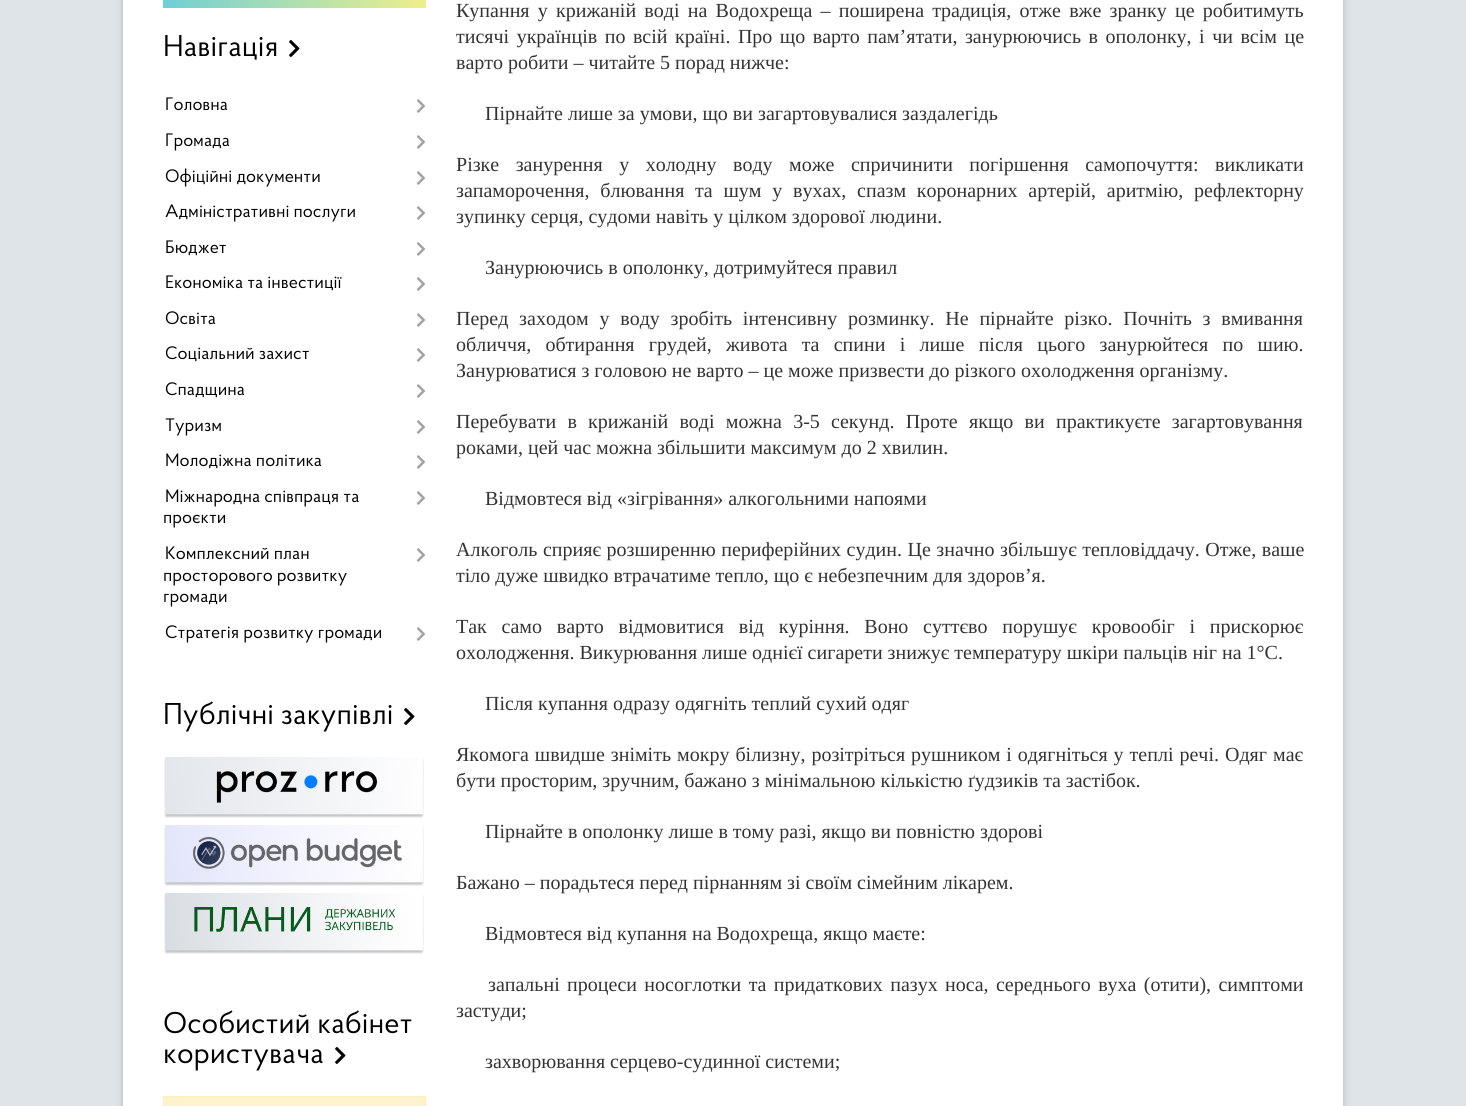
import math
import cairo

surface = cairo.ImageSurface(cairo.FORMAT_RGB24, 1466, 1106)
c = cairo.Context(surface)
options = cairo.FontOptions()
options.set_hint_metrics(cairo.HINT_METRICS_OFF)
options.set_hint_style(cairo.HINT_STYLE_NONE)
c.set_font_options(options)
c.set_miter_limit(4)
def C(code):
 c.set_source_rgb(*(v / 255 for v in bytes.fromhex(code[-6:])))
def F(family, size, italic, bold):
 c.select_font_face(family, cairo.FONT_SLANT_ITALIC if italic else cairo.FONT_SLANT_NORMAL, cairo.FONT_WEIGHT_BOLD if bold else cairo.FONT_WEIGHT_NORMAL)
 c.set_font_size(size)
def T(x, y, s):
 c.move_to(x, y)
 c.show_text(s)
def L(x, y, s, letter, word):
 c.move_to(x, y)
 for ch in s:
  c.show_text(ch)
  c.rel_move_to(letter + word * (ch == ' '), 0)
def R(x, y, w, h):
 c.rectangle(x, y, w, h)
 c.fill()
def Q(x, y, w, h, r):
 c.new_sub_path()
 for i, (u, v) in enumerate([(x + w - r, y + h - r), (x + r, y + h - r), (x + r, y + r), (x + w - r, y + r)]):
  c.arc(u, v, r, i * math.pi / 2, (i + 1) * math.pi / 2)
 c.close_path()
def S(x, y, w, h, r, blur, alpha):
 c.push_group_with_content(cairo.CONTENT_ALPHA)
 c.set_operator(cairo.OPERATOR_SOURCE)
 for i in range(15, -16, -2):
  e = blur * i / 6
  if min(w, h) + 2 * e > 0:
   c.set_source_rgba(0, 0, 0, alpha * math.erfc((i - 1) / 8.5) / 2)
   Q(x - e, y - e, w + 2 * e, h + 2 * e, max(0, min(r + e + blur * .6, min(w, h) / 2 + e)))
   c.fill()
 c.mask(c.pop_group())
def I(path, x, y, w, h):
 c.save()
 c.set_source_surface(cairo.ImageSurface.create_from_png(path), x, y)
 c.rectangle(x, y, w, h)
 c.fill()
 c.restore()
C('dee4e7')
c.paint()
C('000000')
S(123,-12,1220,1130,0,4,.2)
C('ffffff')
R(123,0,1220,1106)
I('1.png',163,0,263,8)
F('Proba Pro',30,0,0)
C('000000')
T(163,56,'Навігація')
I('2.png',289,40,11,17)
F('Proba Pro',18,0,0)
T(165,110,'Головна')
I('3.png',416,99,9,14)
T(165,146,'Громада')
I('3.png',416,135,9,14)
T(165,182,'Офіційні документи')
I('3.png',416,171,9,14)
T(165,217,'Адміністративні послуги')
I('3.png',416,206,9,14)
T(165,253,'Бюджет')
I('3.png',416,242,9,14)
T(165,288,'Економіка та інвестиції')
I('3.png',416,277,9,14)
T(165,324,'Освіта')
I('3.png',416,313,9,14)
T(165,359,'Соціальний захист')
I('3.png',416,348,9,14)
T(165,395,'Спадщина')
I('3.png',416,384,9,14)
T(165,431,'Туризм')
I('3.png',416,420,9,14)
T(165,466,'Молодіжна політика')
I('3.png',416,455,9,14)
T(165,502,'Міжнародна співпраця та')
T(163,523,'проєкти')
I('3.png',416,491,9,14)
T(165,559,'Комплексний план')
T(163,581,'просторового розвитку')
T(163,602,'громади')
I('3.png',416,548,9,14)
T(165,638,'Стратегія розвитку громади')
I('3.png',416,627,9,14)
F('Proba Pro',30,0,0)
T(163,724,'Публічні закупівлі')
I('2.png',404,708,11,17)
I('4.png',164,757,260,61)
I('5.png',164,825,260,61)
I('6.png',164,893,260,61)
T(163,1033,'Особистий кабінет')
T(163,1063,'користувача')
I('2.png',335,1047,11,17)
C('fff3cd')
c.rectangle(163.5,1096.5,262,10)
c.fill_preserve()
C('ffeeba')
c.set_line_width(1)
c.stroke()
F('Liberation Serif',20,0,0)
C('333333')
L(456,17,'Купання у крижаній воді на Водохреща – поширена традиція, отже вже зранку це робитимуть',0,3.25)
L(456,43,'тисячі українців по всій країні. Про що варто пам’ятати, занурюючись в ополонку, і чи всім це',0,2.5)
T(456,69,'варто робити – читайте 5 порад нижче:')
T(485,120,'Пірнайте лише за умови, що ви загартовувалися заздалегідь')
L(456,171,'Різке занурення у холодну воду може спричинити погіршення самопочуття: викликати',0,11.5)
L(456,197,'запаморочення, блювання та шум у вухах, спазм коронарних артерій, аритмію, рефлекторну',0,5.75)
T(456,223,'зупинку серця, судоми навіть у цілком здорової людини.')
T(485,274,'Занурюючись в ополонку, дотримуйтеся правил')
L(456,325,'Перед заходом у воду зробіть інтенсивну розминку. Не пірнайте різко. Почніть з вмивання',0,5.75)
L(456,351,'обличчя, обтирання грудей, живота та спини і лише після цього занурюйтеся по шию.',0,9.25)
T(456,377,'Занурюватися з головою не варто – це може призвести до різкого охолодження організму.')
L(456,428,'Перебувати в крижаній воді можна 3-5 секунд. Проте якщо ви практикуєте загартовування',0,6.25)
T(456,454,'роками, цей час можна збільшити максимум до 2 хвилин.')
T(485,505,'Відмовтеся від «зігрівання» алкогольними напоями')
L(456,556,'Алкоголь сприяє розширенню периферійних судин. Це значно збільшує тепловіддачу. Отже, ваше',0,.5)
T(456,582,'тіло дуже швидко втрачатиме тепло, що є небезпечним для здоров’я.')
L(456,633,'Так само варто відмовитися від куріння. Воно суттєво порушує кровообіг і прискорює',0,9.75)
T(456,659,'охолодження. Викурювання лише однієї сигарети знижує температуру шкіри пальців ніг на 1°С.')
T(485,710,'Після купання одразу одягніть теплий сухий одяг')
L(456,761,'Якомога швидше зніміть мокру білизну, розітріться рушником і одягніться у теплі речі. Одяг має',0,1)
T(456,787,'бути просторим, зручним, бажано з мінімальною кількістю ґудзиків та застібок.')
T(485,838,'Пірнайте в ополонку лише в тому разі, якщо ви повністю здорові')
T(456,889,'Бажано – порадьтеся перед пірнанням зі своїм сімейним лікарем.')
T(485,940,'Відмовтеся від купання на Водохреща, якщо маєте:')
L(488,991,'запальні процеси носоглотки та придаткових пазух носа, середнього вуха (отити), симптоми',0,2.4)
T(456,1017,'застуди;')
T(485,1068,'захворювання серцево-судинної системи;')
surface.write_to_png('o.png')
